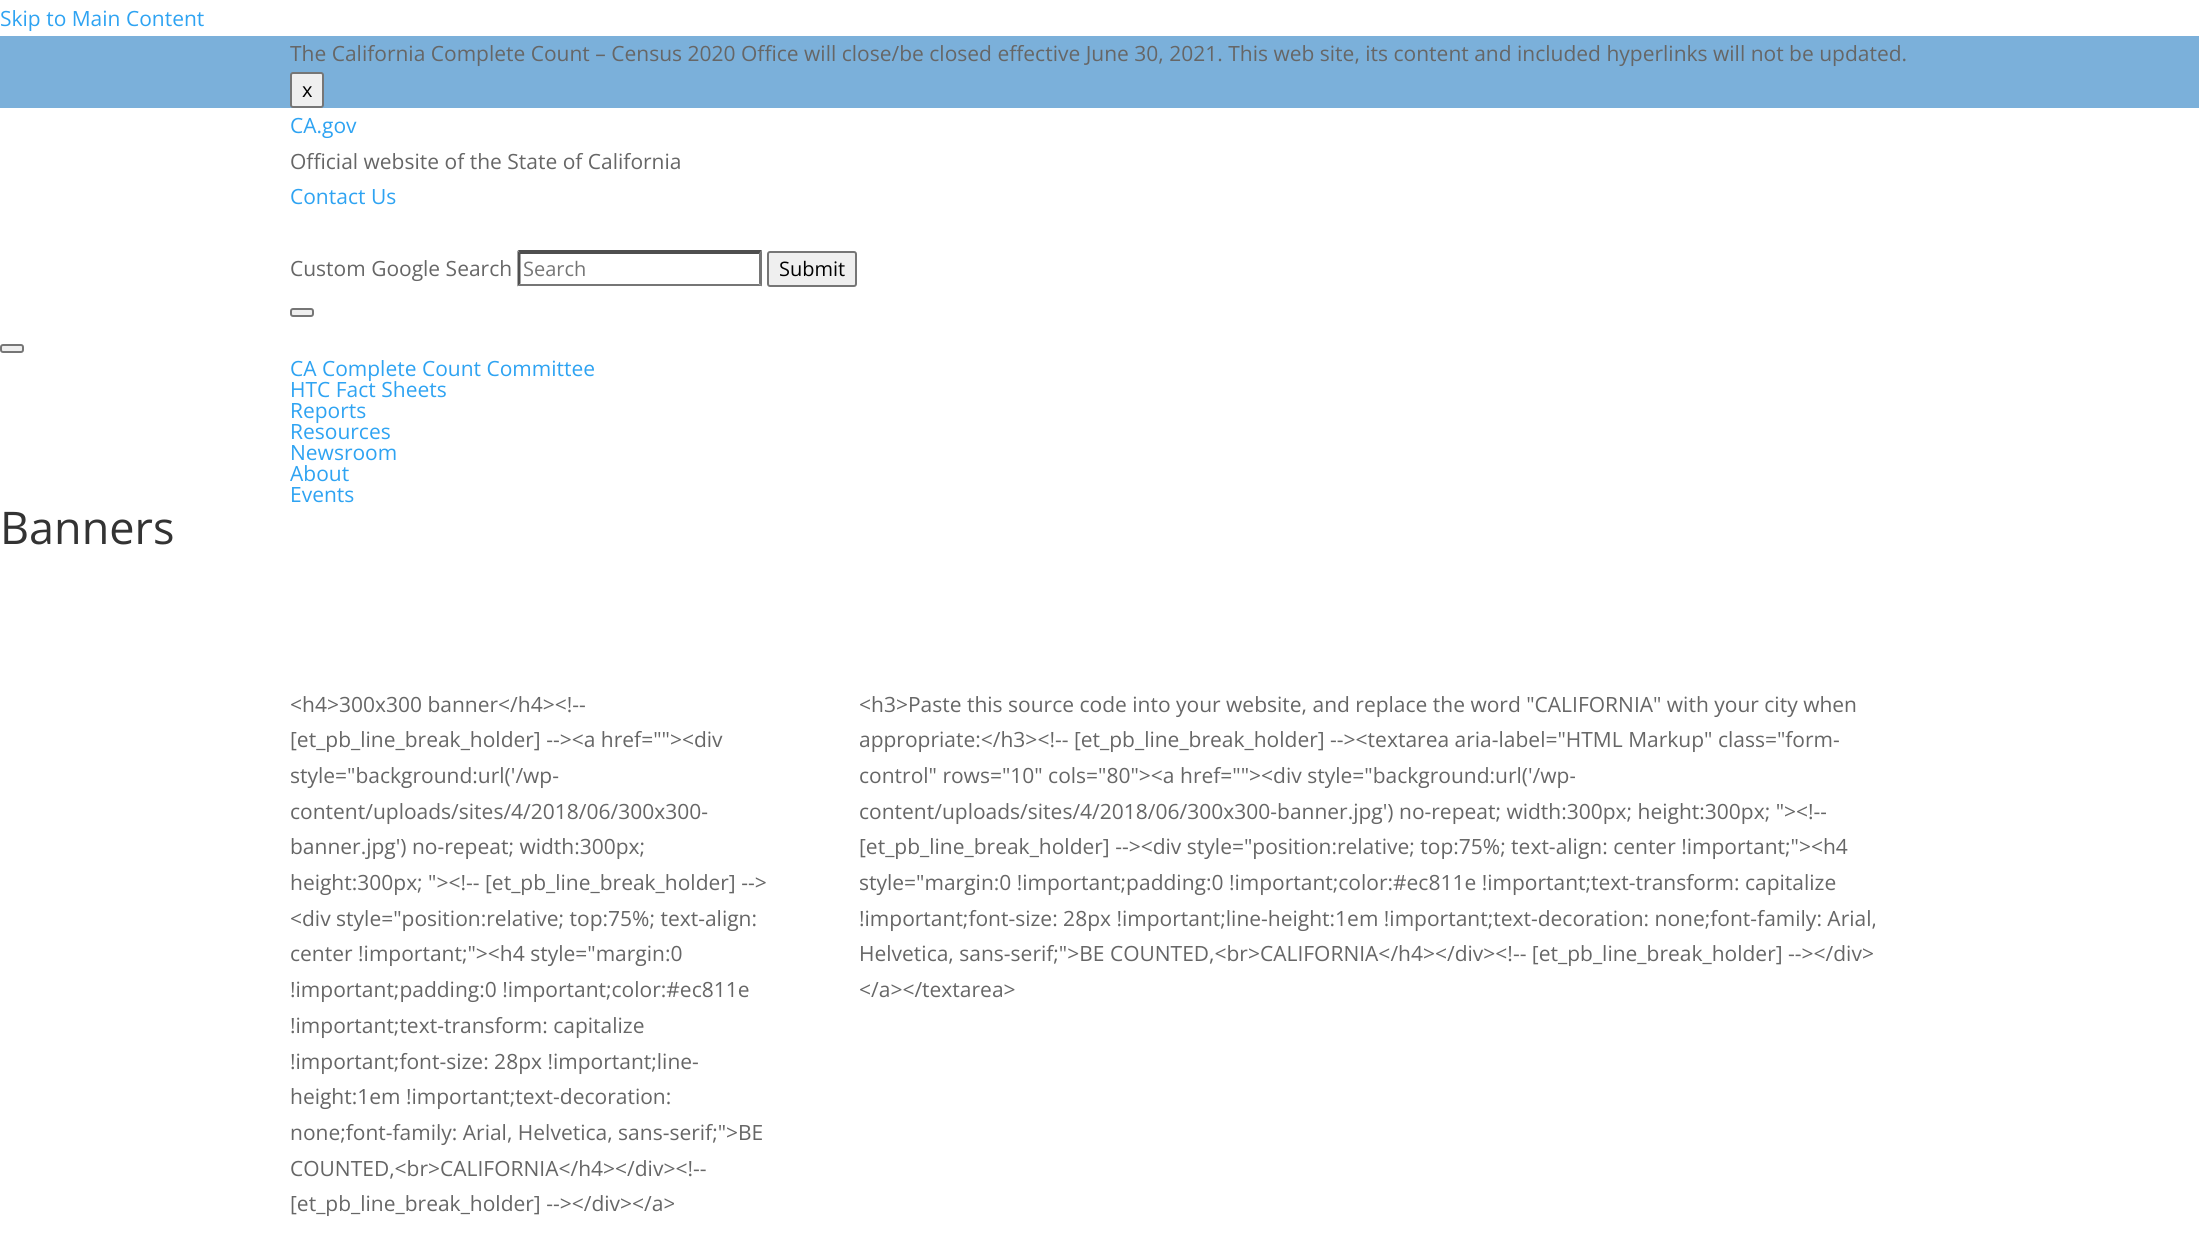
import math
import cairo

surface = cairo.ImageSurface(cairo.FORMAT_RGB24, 2199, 1233)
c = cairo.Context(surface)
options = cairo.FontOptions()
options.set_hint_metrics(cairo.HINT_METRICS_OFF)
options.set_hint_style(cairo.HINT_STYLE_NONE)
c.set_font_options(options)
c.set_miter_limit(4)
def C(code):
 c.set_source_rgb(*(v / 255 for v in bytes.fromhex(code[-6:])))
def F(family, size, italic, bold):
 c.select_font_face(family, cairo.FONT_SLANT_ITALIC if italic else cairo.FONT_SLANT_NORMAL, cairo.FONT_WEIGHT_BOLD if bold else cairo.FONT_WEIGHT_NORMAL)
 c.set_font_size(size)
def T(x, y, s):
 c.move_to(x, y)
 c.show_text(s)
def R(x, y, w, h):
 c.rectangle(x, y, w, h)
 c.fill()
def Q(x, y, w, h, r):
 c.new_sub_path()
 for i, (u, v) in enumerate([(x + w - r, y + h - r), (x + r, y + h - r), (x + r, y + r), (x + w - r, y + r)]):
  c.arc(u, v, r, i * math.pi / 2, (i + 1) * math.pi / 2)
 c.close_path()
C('ffffff')
c.paint()
F('Open Sans',21,0,0)
C('2ea3f2')
T(0,26,'Skip to Main Content')
C('7bb0da')
R(0,36,2199,72)
C('666666')
T(290,61,'The California Complete Count – Census 2020 Office will close/be closed effective June 30, 2021. This web site, its content and included hyperlinks will not be updated.')
C('efefef')
Q(291,73,32,34,2)
c.fill_preserve()
C('767676')
c.stroke()
F('Open Sans',20,0,0)
C('000000')
T(302,97,'x')
F('Open Sans',21,0,0)
C('2ea3f2')
T(290,133,'CA.gov')
C('666666')
T(290,169,'Official website of the State of California')
C('2ea3f2')
T(290,204,'Contact Us')
C('666666')
T(290,276,'Custom Google Search')
C('4f4f4f')
c.new_path()
c.move_to(518,250)
c.line_to(762,250)
c.line_to(759,254)
c.line_to(520,254)
c.close_path()
c.fill()
C('767676')
c.new_path()
c.move_to(762,250.5)
c.line_to(762,286.5)
c.line_to(759,283.5)
c.line_to(759,253.5)
c.close_path()
c.fill()
c.new_path()
c.move_to(762,286)
c.line_to(518,286)
c.line_to(520,284)
c.line_to(759,284)
c.close_path()
c.fill()
C('4f4f4f')
c.new_path()
c.move_to(517.5,286.5)
c.line_to(517.5,250.5)
c.line_to(520.5,253.5)
c.line_to(520.5,283.5)
c.close_path()
c.fill()
F('Open Sans',20,0,0)
C('757575')
T(523,276,'Search')
C('efefef')
Q(768,252,88,34,2)
c.fill_preserve()
C('767676')
c.stroke()
C('000000')
T(779,276,'Submit')
C('efefef')
Q(291,309,22,7,2)
c.fill_preserve()
C('767676')
c.stroke()
C('efefef')
Q(1,345,22,7,2)
c.fill_preserve()
C('767676')
c.stroke()
F('Open Sans',21,0,0)
C('2ea3f2')
T(290,376,'CA Complete Count Committee')
T(290,397,'HTC Fact Sheets')
T(290,418,'Reports')
T(290,439,'Resources')
T(290,460,'Newsroom')
T(290,481,'About')
T(290,502,'Events')
F('Open Sans',45,0,0)
C('333333')
T(0,544,'Banners')
F('Open Sans',21,0,0)
C('666666')
T(290,712,'<h4>300x300 banner</h4><!--')
T(290,747,'[et_pb_line_break_holder] --><a href=""><div')
T(290,783,'style="background:url(\'/wp-')
T(290,819,'content/uploads/sites/4/2018/06/300x300-')
T(290,854,'banner.jpg\') no-repeat; width:300px;')
T(290,890,'height:300px; "><!-- [et_pb_line_break_holder] -->')
T(290,926,'<div style="position:relative; top:75%; text-align:')
T(290,961,'center !important;"><h4 style="margin:0')
T(290,997,'!important;padding:0 !important;color:#ec811e')
T(290,1033,'!important;text-transform: capitalize')
T(290,1069,'!important;font-size: 28px !important;line-')
T(290,1104,'height:1em !important;text-decoration:')
T(290,1140,'none;font-family: Arial, Helvetica, sans-serif;">BE')
T(290,1176,'COUNTED,<br>CALIFORNIA</h4></div><!--')
T(290,1211,'[et_pb_line_break_holder] --></div></a>')
T(859,712,'<h3>Paste this source code into your website, and replace the word "CALIFORNIA" with your city when')
T(859,747,'appropriate:</h3><!-- [et_pb_line_break_holder] --><textarea aria-label="HTML Markup" class="form-')
T(859,783,'control" rows="10" cols="80"><a href=""><div style="background:url(\'/wp-')
T(859,819,'content/uploads/sites/4/2018/06/300x300-banner.jpg\') no-repeat; width:300px; height:300px; "><!--')
T(859,854,'[et_pb_line_break_holder] --><div style="position:relative; top:75%; text-align: center !important;"><h4')
T(859,890,'style="margin:0 !important;padding:0 !important;color:#ec811e !important;text-transform: capitalize')
T(859,926,'!important;font-size: 28px !important;line-height:1em !important;text-decoration: none;font-family: Arial,')
T(859,961,'Helvetica, sans-serif;">BE COUNTED,<br>CALIFORNIA</h4></div><!-- [et_pb_line_break_holder] --></div>')
T(859,997,'</a></textarea>')
surface.write_to_png('o.png')
